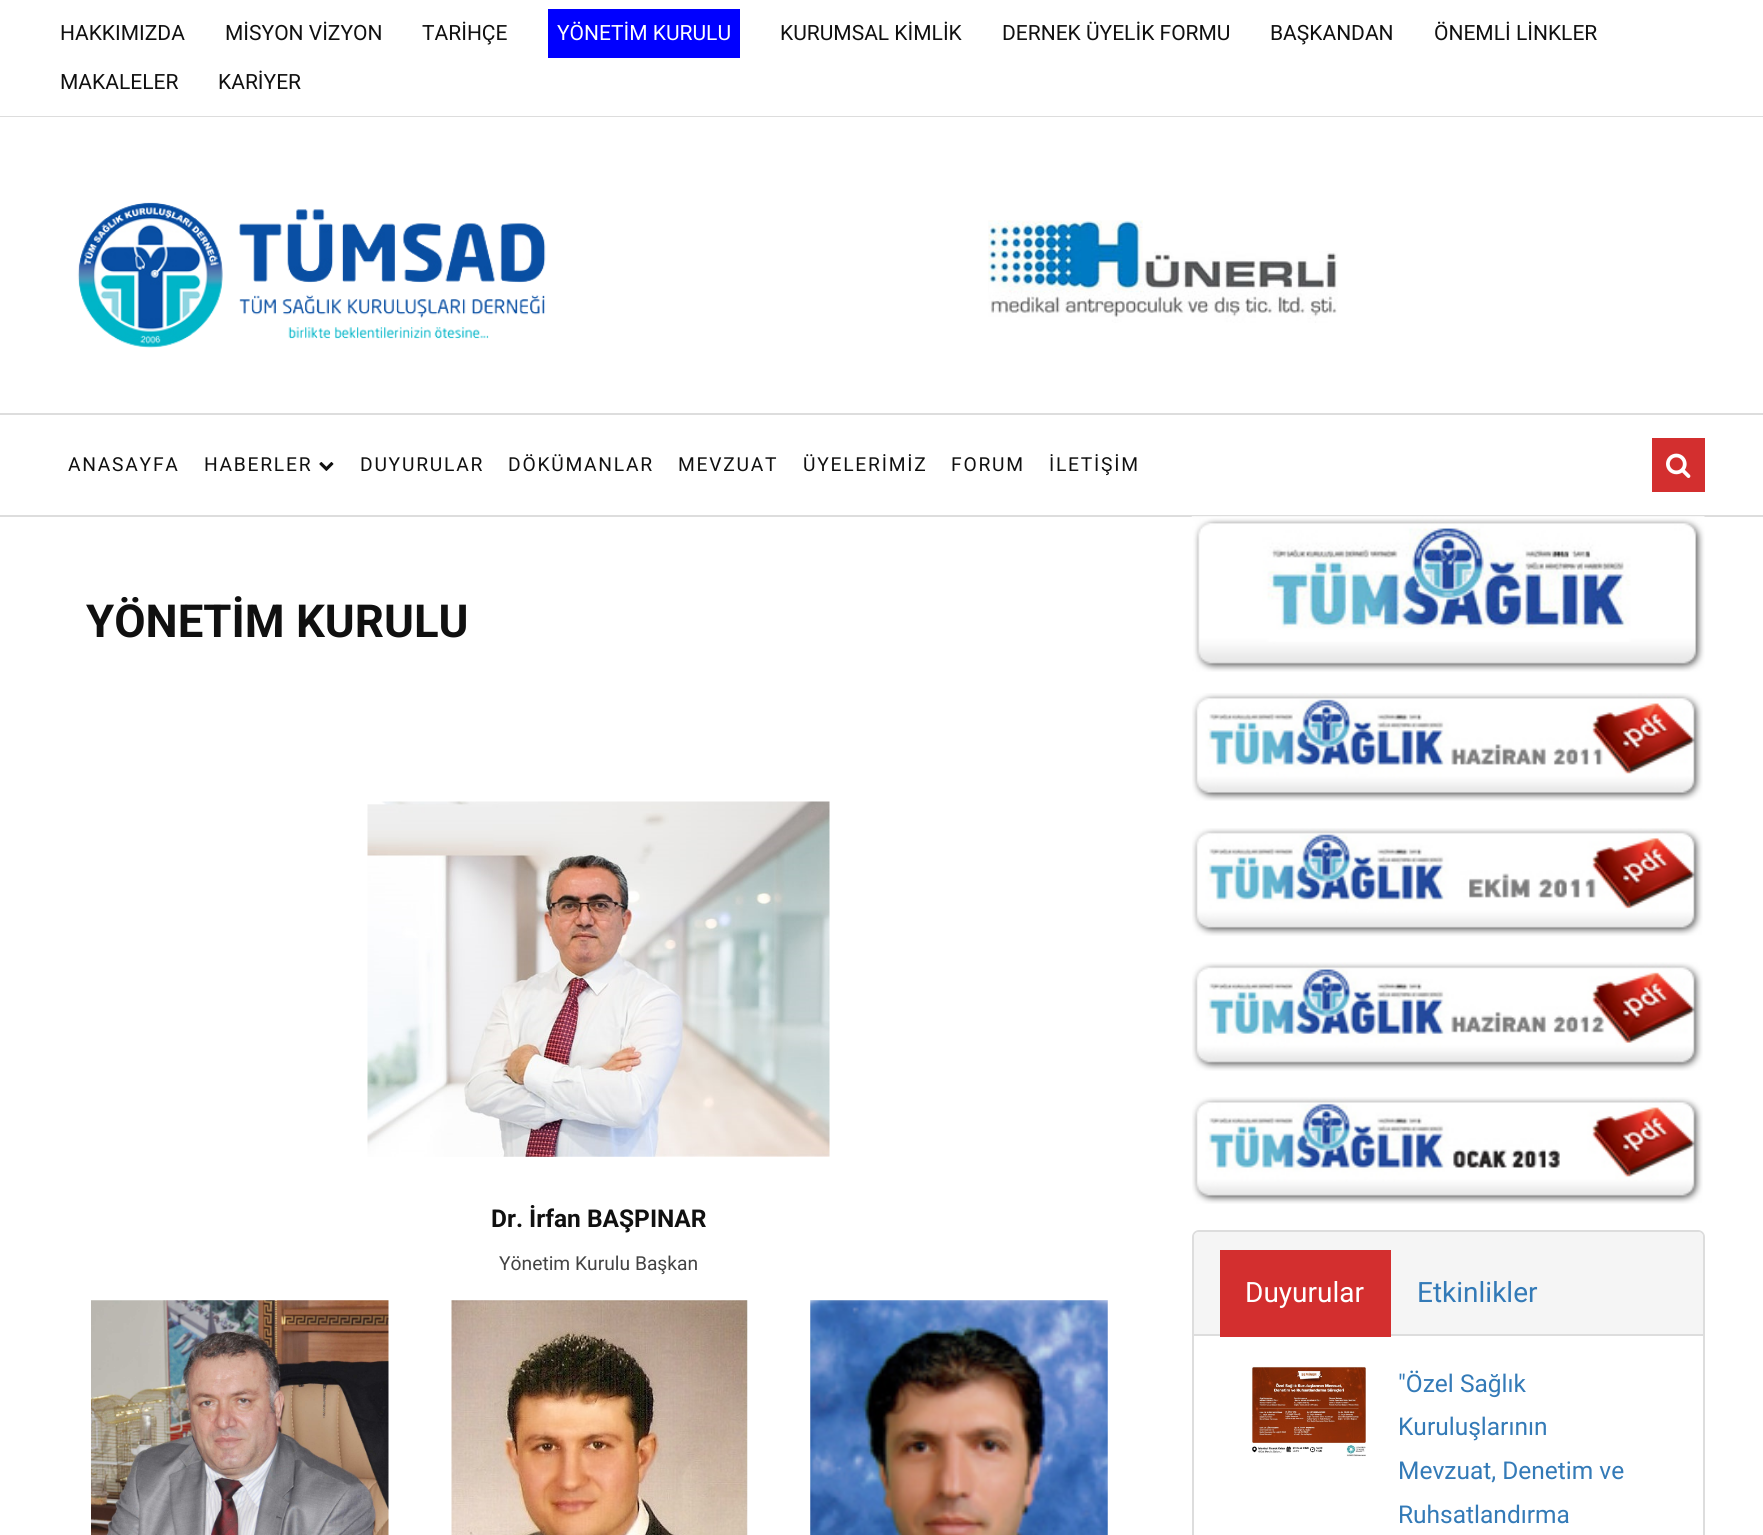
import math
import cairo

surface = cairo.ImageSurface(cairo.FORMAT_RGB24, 1763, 1535)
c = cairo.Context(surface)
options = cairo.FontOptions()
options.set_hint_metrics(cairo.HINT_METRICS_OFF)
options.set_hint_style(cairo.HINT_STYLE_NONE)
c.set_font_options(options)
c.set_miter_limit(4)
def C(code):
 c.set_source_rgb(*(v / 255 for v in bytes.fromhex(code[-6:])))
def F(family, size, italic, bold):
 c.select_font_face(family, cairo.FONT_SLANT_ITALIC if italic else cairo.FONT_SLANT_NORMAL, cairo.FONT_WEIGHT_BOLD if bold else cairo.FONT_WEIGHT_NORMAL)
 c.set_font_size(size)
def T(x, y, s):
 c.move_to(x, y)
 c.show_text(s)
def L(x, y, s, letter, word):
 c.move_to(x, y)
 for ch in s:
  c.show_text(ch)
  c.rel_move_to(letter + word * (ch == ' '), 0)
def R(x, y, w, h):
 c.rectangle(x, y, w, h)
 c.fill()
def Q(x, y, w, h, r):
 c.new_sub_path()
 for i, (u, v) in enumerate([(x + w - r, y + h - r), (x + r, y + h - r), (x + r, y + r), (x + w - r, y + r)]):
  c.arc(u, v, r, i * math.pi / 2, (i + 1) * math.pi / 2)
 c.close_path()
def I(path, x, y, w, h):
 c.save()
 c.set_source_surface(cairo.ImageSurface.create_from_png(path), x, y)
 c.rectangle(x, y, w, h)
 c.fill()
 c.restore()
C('ffffff')
c.paint()
C('dddddd')
R(0,116,1763,1)
F('Roboto',21,0,0)
C('101010')
T(60,40,'HAKKIMIZDA')
T(225,40,'MİSYON VİZYON')
T(422,40,'TARİHÇE')
C('0000ff')
R(548,9,192,49)
C('ffffff')
T(557,40,'YÖNETİM KURULU')
C('101010')
T(780,40,'KURUMSAL KİMLİK')
T(1002,40,'DERNEK ÜYELİK FORMU')
T(1270,40,'BAŞKANDAN')
T(1434,40,'ÖNEMLİ LİNKLER')
T(60,89,'MAKALELER')
T(218,89,'KARİYER')
I('1.png',77,202,469,146)
I('2.png',988,220,350,103)
C('dddddd')
R(0,413,1763,2)
R(0,515,1763,2)
F('Roboto',19.25,0,0)
C('101010')
L(68,471,'ANASAYFA',1.75,0)
L(204,471,'HABERLER',1.75,0)
I('3.png',319,462,15,9)
L(360,471,'DUYURULAR',1.75,0)
L(508,471,'DÖKÜMANLAR',1.75,0)
L(678,471,'MEVZUAT',1.75,0)
L(803,471,'ÜYELERİMİZ',1.75,0)
L(951,471,'FORUM',1.75,0)
L(1049,471,'İLETİŞİM',1.75,0)
C('d32f2f')
R(1652,438,53,54)
I('4.png',1666,453,25,25)
F('Roboto',45.5,0,1)
C('101010')
T(86,637,'YÖNETİM KURULU')
I('5.png',367,801,463,356)
F('Roboto',24.5,0,1)
T(491,1227,'Dr. İrfan BAŞPINAR')
F('Roboto',19.25,0,0)
C('434343')
T(499,1270,'Yönetim Kurulu Başkan')
I('6.png',91,1300,298,235)
I('7.png',451,1300,297,235)
I('8.png',810,1300,298,235)
I('9.png',1191,516,514,156)
I('10.png',1192,693,511,108)
I('11.png',1192,828,511,108)
I('12.png',1192,962,511,109)
I('13.png',1192,1097,511,107)
Q(1193,1231,511,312,6)
C('dddddd')
c.stroke()
C('f5f5f5')
c.new_path()
c.move_to(1199,1232)
c.line_to(1698,1232)
c.curve_to(1701,1232,1703,1234,1703,1237)
c.line_to(1703,1335)
c.line_to(1194,1335)
c.line_to(1194,1237)
c.curve_to(1194,1234,1196,1232,1199,1232)
c.close_path()
c.fill()
C('dddddd')
R(1194,1334,509,2)
C('d32f2f')
R(1220,1250,171,87)
F('Roboto',28,0,0)
C('ffffff')
T(1245,1302,'Duyurular')
C('337ab7')
T(1417,1302,'Etkinlikler')
I('14.png',1251,1366,115,91)
F('Roboto',24.5,0,0)
T(1398,1392,'"Özel Sağlık')
T(1398,1435,'Kuruluşlarının')
T(1398,1479,'Mevzuat, Denetim ve')
T(1398,1523,'Ruhsatlandırma')
surface.write_to_png('o.png')
